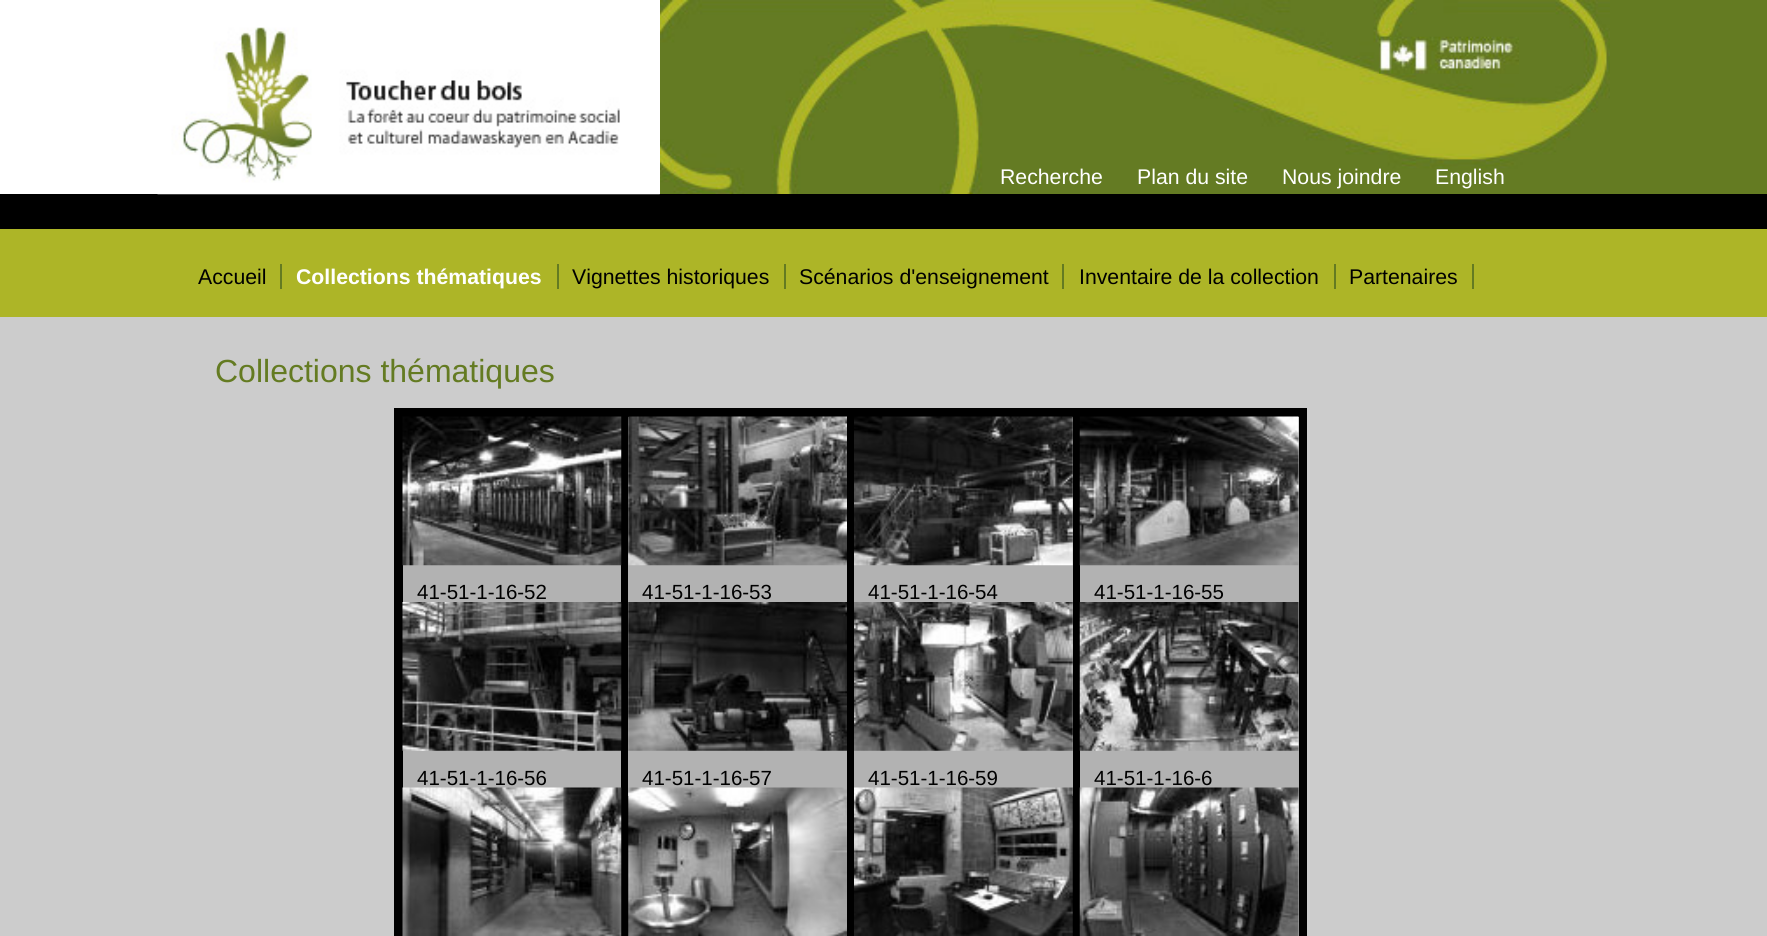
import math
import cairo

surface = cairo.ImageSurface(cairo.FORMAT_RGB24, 1767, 936)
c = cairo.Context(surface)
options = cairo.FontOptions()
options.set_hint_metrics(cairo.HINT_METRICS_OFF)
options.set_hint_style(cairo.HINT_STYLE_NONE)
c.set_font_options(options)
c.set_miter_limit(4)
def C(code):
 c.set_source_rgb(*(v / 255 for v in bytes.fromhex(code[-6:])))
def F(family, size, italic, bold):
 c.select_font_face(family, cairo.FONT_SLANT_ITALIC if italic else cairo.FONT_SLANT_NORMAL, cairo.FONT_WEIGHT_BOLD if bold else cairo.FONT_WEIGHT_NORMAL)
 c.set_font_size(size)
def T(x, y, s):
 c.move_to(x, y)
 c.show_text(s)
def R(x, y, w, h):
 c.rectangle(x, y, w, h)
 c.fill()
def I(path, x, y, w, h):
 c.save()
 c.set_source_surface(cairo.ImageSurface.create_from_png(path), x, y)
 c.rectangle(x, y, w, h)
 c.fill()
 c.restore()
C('cccccc')
c.paint()
C('ffffff')
R(0,0,660,194)
C('647b22')
R(1610,0,157,194)
I('1.png',660,0,950,194)
C('000000')
R(0,194,1767,35)
I('2.png',157,27,503,168)
I('3.png',1379,36,140,38)
F('Liberation Sans',21.25,0,0)
C('ffffff')
T(1000,184,'Recherche')
T(1137,184,'Plan du site')
T(1282,184,'Nous joindre')
T(1435,184,'English')
C('adb527')
R(0,229,1767,88)
C('647b22')
R(280,264,2,25)
C('000000')
T(198,284,'Accueil')
C('647b22')
R(557,264,2,25)
F('Liberation Sans',21.25,0,1)
C('ffffff')
T(296,284,'Collections thématiques')
C('647b22')
R(784,264,2,25)
F('Liberation Sans',21.25,0,0)
C('000000')
T(572,284,'Vignettes historiques')
C('647b22')
R(1062,264,2,25)
C('000000')
T(799,284,'Scénarios d\'enseignement')
C('647b22')
R(1334,264,2,25)
C('000000')
T(1079,284,'Inventaire de la collection')
C('647b22')
R(1472,264,2,25)
C('000000')
T(1349,284,'Partenaires')
F('Liberation Sans',32,0,0)
C('647b22')
T(215,382,'Collections thématiques')
C('000000')
R(394,408,913,528)
C('b2b2b2')
R(403,565,218,37)
I('4.png',402,416,220,150)
F('Liberation Sans',20.5,0,0)
C('000000')
T(417,599,'41-51-1-16-52')
C('b2b2b2')
R(628,417,219,379)
I('5.png',628,416,219,150)
C('000000')
T(642,599,'41-51-1-16-53')
C('b2b2b2')
R(854,417,219,379)
I('6.png',854,416,219,150)
C('000000')
T(868,599,'41-51-1-16-54')
C('b2b2b2')
R(1080,417,219,371)
I('7.png',1079,416,220,150)
C('000000')
T(1094,599,'41-51-1-16-55')
C('b2b2b2')
R(403,750,218,38)
I('8.png',402,602,220,149)
C('000000')
T(417,785,'41-51-1-16-56')
I('9.png',628,602,219,149)
T(642,785,'41-51-1-16-57')
I('10.png',854,602,219,149)
T(868,785,'41-51-1-16-59')
I('11.png',1079,602,220,149)
T(1094,785,'41-51-1-16-6')
I('12.png',402,787,220,149)
I('13.png',628,787,219,149)
I('14.png',854,787,219,149)
C('b2b2b2')
R(1298,788,1,148)
I('15.png',1079,787,220,149)
surface.write_to_png('o.png')
